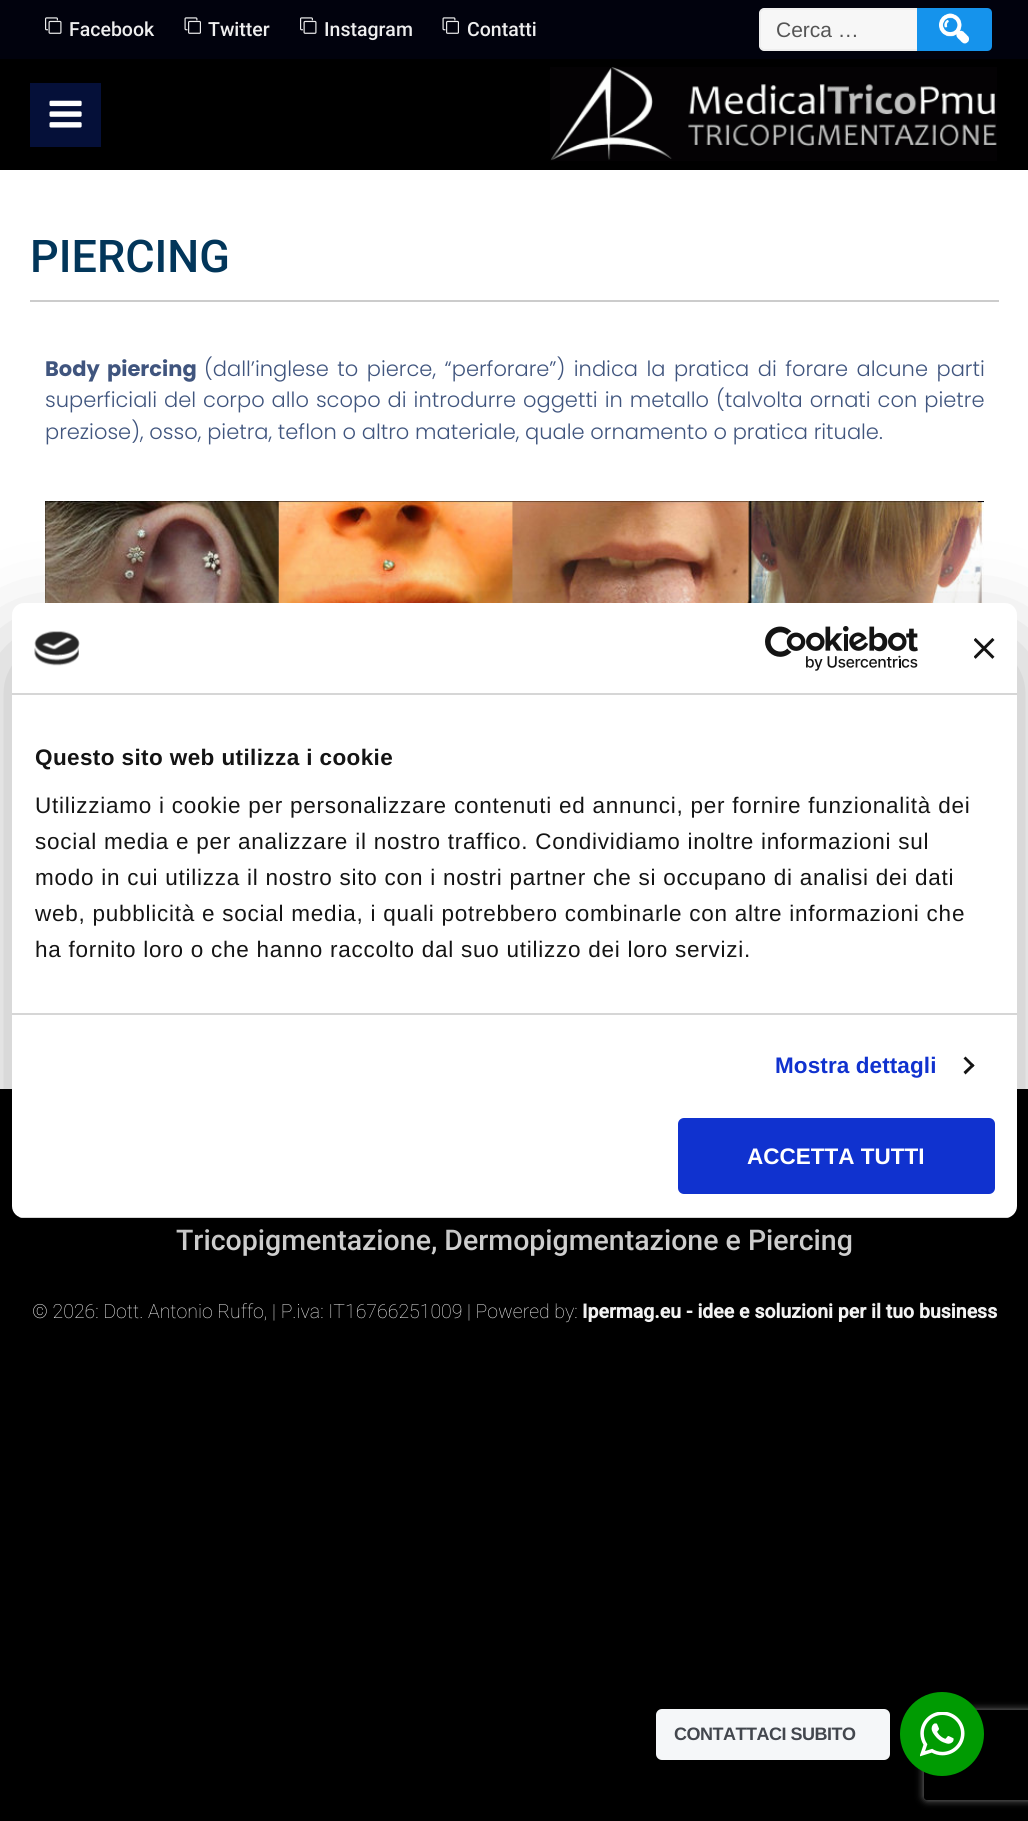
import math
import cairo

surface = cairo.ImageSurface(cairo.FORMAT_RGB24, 1028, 1821)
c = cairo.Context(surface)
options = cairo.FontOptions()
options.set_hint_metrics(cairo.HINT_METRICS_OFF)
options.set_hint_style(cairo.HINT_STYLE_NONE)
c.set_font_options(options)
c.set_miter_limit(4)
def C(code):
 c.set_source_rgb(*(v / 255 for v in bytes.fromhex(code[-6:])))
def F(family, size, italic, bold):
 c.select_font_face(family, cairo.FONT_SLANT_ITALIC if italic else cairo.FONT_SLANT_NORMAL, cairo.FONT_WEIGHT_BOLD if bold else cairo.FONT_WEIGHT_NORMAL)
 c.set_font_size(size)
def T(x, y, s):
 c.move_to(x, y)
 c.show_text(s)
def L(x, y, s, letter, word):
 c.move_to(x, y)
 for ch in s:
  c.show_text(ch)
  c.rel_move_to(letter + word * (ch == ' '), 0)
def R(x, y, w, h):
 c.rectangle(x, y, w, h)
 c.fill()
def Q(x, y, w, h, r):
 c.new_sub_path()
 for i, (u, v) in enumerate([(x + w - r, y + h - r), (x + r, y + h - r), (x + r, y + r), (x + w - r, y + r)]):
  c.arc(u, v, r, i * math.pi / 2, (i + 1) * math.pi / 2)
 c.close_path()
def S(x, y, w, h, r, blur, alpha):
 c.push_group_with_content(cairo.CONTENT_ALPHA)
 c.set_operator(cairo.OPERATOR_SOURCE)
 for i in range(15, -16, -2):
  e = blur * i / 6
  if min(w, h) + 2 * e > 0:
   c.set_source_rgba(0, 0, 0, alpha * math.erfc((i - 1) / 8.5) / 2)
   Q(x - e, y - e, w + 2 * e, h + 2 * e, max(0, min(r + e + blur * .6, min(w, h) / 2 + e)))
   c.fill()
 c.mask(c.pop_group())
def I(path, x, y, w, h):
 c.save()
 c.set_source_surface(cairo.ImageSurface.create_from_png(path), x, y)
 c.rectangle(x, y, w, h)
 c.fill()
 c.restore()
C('000000')
c.paint()
C('ffffff')
R(0,170,1028,919)
C('01020d')
R(0,0,1028,59)
I('1.png',45,17,17,17)
F('Roboto Medium',19.5,0,0)
C('eeeeee')
T(69,36,'Facebook')
I('2.png',184,17,17,17)
T(208,36,'Twitter')
I('1.png',300,17,17,17)
T(324,36,'Instagram')
I('2.png',442,17,17,17)
T(467,36,'Contatti')
C('f7f7f7')
c.new_path()
c.move_to(764,9)
c.line_to(923,9)
c.line_to(923,50)
c.line_to(764,50)
c.curve_to(762,50,760,48,760,46)
c.line_to(760,13)
c.curve_to(760,11,762,9,764,9)
c.close_path()
c.fill_preserve()
C('eeeeee')
c.stroke()
F('Liberation Sans',21,0,0)
C('555555')
T(776,37,'Cerca …')
C('1593ec')
c.new_path()
c.move_to(917,8)
c.line_to(987,8)
c.curve_to(990,8,992,10,992,13)
c.line_to(992,46)
c.curve_to(992,49,990,51,987,51)
c.line_to(917,51)
c.close_path()
c.fill()
I('3.png',939,13,30,31)
C('051039')
R(30,83,71,64)
I('4.png',49,100,33,28)
I('5.png',550,67,447,94)
F('Roboto Medium',45,0,0)
C('02365a')
T(30,272,'PIERCING')
C('cccccc')
R(30,300,969,2)
F('Poppins',21,0,1)
C('40557e')
L(45,376,'Body piercing',0,2.75)
F('Poppins Light',21,0,0)
L(204,376,'(dall’inglese to pierce, “perforare”) indica la pratica di forare alcune parti',0,2.75)
L(45,407,'superficiali del corpo allo scopo di introdurre oggetti in metallo (talvolta ornati con pietre',0,1.25)
T(45,439,'preziose), osso, pietra, teflon o altro materiale, quale ornamento o pratica rituale.')
I('6.png',45,501,939,102)
F('Roboto Medium',28.5,0,0)
C('ffffff')
T(176,1250,'Tricopigmentazione, Dermopigmentazione e Piercing')
F('Roboto Thin',19.5,0,0)
T(32,1318,'© 2026: Dott. Antonio Ruffo, | P.iva: IT16766251009 | Powered by:')
F('Roboto',19.5,0,1)
T(582,1318,'Ipermag.eu - idee e soluzioni per il tuo business')
C('000000')
S(12,651,1005,615,12,51,.3)
C('ffffff')
Q(12,603,1005,615,12)
c.fill()
C('d6d6d6')
R(12,693,1005,2)
I('7.png',34,631,46,35)
I('8.png',765,626,153,45)
I('9.png',974,638,21,21)
R(12,1013,1005,2)
F('Liberation Sans',22.5,0,1)
C('141414')
L(35,765,'Questo sito web utilizza i cookie',.4,0)
F('Liberation Sans',22.5,0,0)
L(35,813,'Utilizziamo i cookie per personalizzare contenuti ed annunci, per fornire funzionalità dei',.75,0)
L(35,849,'social media e per analizzare il nostro traffico. Condividiamo inoltre informazioni sul',.75,0)
L(35,885,'modo in cui utilizza il nostro sito con i nostri partner che si occupano di analisi dei dati',.75,0)
L(35,921,'web, pubblicità e social media, i quali potrebbero combinarle con altre informazioni che',.75,0)
L(35,957,'ha fornito loro o che hanno raccolto dal suo utilizzo dei loro servizi.',.75,0)
F('Liberation Sans',22.5,0,1)
C('1032cf')
L(775,1073,'Mostra dettagli',.1,0)
C('141414')
c.new_path()
c.move_to(965.5,1056.5)
c.line_to(974.5,1065.5)
c.line_to(972.5,1067.5)
c.line_to(963.5,1058.5)
c.close_path()
c.fill()
c.new_path()
c.move_to(972.5,1063.5)
c.line_to(974.5,1065.5)
c.line_to(965.5,1074.5)
c.line_to(963.5,1072)
c.close_path()
c.fill()
c.save()
Q(12,603,1005,615,12)
c.clip()
C('d6d6d6')
R(12,1217,1005,1)
c.restore()
C('1032cf')
Q(679.5,1119.5,314,73,4.5)
c.fill_preserve()
c.set_line_width(3)
c.stroke()
C('ffffff')
T(747,1164,'ACCETTA TUTTI')
C('f5f7f9')
Q(656,1709,234,51,6)
c.fill()
F('Liberation Sans',18,0,1)
C('43474e')
L(674,1740,'CONTATTACI SUBITO',-.5,0)
c.save()
c.set_fill_rule(cairo.FILL_RULE_EVEN_ODD)
c.new_path()
c.move_to(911,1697)
c.line_to(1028,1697)
c.line_to(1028,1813)
c.line_to(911,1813)
c.close_path()
c.move_to(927,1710)
c.line_to(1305,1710)
c.curve_to(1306.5,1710,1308,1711.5,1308,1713)
c.line_to(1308,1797)
c.curve_to(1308,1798.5,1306.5,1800,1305,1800)
c.line_to(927,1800)
c.curve_to(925.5,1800,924,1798.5,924,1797)
c.line_to(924,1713)
c.curve_to(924,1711.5,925.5,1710,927,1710)
c.close_path()
c.clip()
C('808080')
S(924,1710,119,90,3,4,1)
c.restore()
C('009b02')
c.arc(942,1734,42,0,2 * math.pi)
c.fill()
I('10.png',920,1712,45,45)
surface.write_to_png('o.png')
